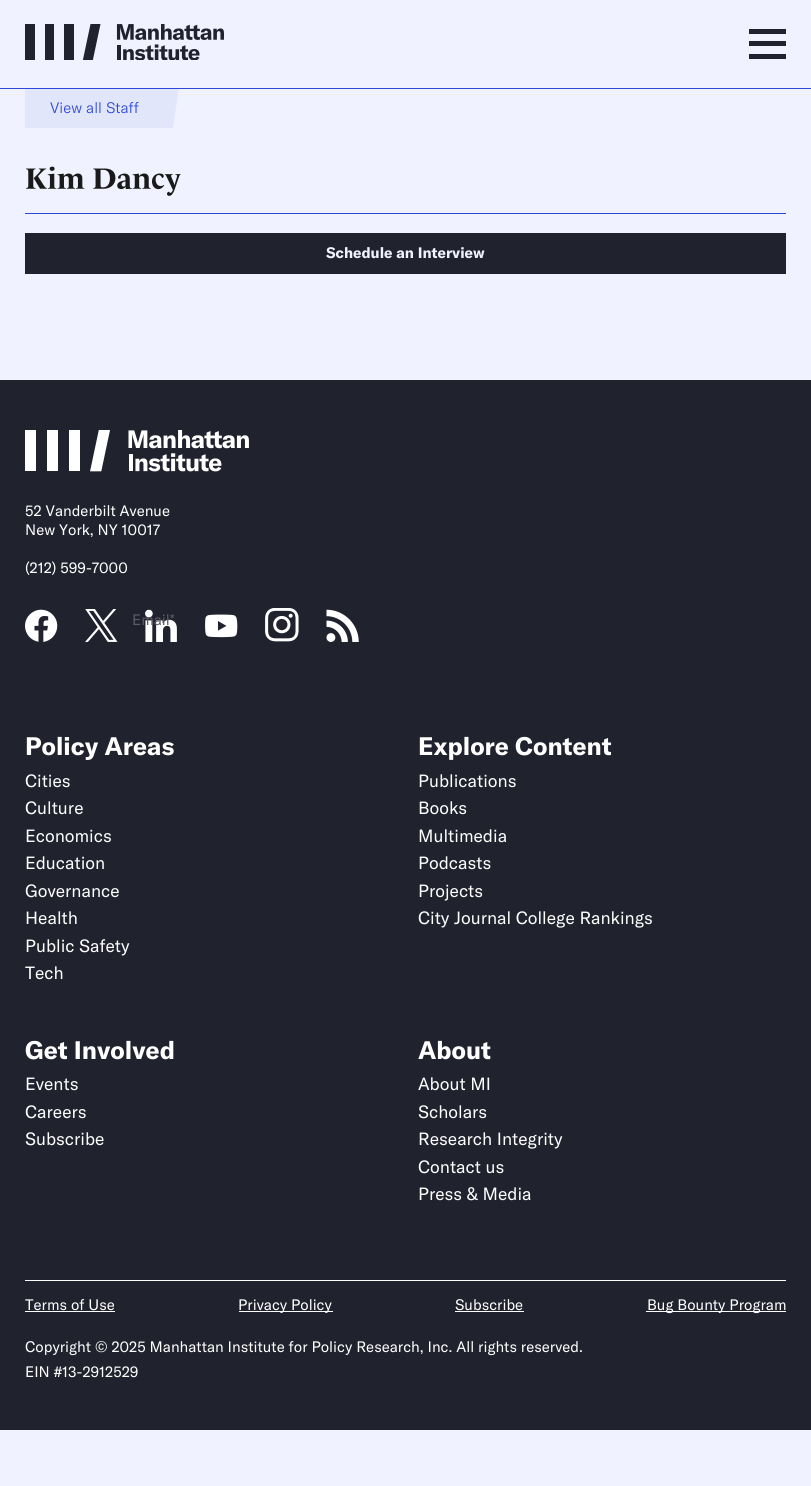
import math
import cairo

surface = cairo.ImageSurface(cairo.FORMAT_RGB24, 811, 1486)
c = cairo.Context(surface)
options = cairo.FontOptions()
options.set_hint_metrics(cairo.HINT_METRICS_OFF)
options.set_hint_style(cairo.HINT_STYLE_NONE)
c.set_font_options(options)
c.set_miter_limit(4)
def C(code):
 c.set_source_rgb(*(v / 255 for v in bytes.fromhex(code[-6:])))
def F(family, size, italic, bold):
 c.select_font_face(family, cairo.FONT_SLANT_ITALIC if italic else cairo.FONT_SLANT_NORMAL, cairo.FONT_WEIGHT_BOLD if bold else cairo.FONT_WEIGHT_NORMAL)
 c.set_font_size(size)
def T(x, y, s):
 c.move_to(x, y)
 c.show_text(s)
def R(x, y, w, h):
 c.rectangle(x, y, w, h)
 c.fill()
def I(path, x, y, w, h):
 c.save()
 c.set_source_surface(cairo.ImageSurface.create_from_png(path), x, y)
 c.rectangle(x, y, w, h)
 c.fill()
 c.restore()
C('f0f3ff')
c.paint()
C('e1e6fa')
c.new_path()
c.move_to(25,88)
c.line_to(25,128)
c.line_to(173,128)
c.line_to(179,88)
c.close_path()
c.fill()
C('2c48dc')
R(0,88,811,1)
I('1.png',25,24,199,36)
C('20222e')
R(749,29,37,5)
R(749,41,37,5)
R(749,54,37,5)
F('GT America Light',15,0,0)
C('2c48dc')
T(50,113,'View all Staff')
R(25,213,761,1)
I('2.png',25,166,156,30)
C('20222e')
R(25,233,761,41)
F('GT America',15,0,1)
C('f0f3ff')
T(326,258,'Schedule an Interview')
C('20222e')
R(0,380,811,1050)
I('6.png',145,609,32,33)
F('GT America',15,0,0)
C('5a5b64')
T(132,625,'Email*')
I('3.png',25,430,224,42)
C('ffffff')
T(25,516,'52 Vanderbilt Avenue')
T(25,535,'New York, NY 10017')
T(25,573,'(212) 599-7000')
I('4.png',25,609,33,33)
I('5.png',85,609,33,33)
I('7.png',205,614,33,24)
I('8.png',265,608,34,34)
I('9.png',326,609,33,33)
F('GT America',25,0,1)
T(25,755,'Policy Areas')
F('GT America',17.5,0,0)
T(25,787,'Cities')
T(25,814,'Culture')
T(25,842,'Economics')
T(25,869,'Education')
T(25,897,'Governance')
T(25,924,'Health')
T(25,952,'Public Safety')
T(25,979,'Tech')
F('GT America',25,0,1)
T(418,755,'Explore Content')
F('GT America',17.5,0,0)
T(418,787,'Publications')
T(418,814,'Books')
T(418,842,'Multimedia')
T(418,869,'Podcasts')
T(418,897,'Projects')
T(418,924,'City Journal College Rankings')
F('GT America',25,0,1)
T(25,1059,'Get Involved')
F('GT America',17.5,0,0)
T(25,1090,'Events')
T(25,1118,'Careers')
T(25,1145,'Subscribe')
F('GT America',25,0,1)
T(418,1059,'About')
F('GT America',17.5,0,0)
T(418,1090,'About MI')
T(418,1118,'Scholars')
T(418,1145,'Research Integrity')
T(418,1173,'Contact us')
T(418,1200,'Press & Media')
R(25,1280,761,1)
F('GT America',15,0,0)
T(25,1310,'Terms of Use')
R(25,1311,90,1)
R(239,1311,94,1)
T(238,1310,'Privacy Policy')
T(455,1310,'Subscribe')
R(455,1311,69,1)
R(646,1311,140,1)
T(647,1310,'Bug Bounty Program')
T(25,1352,'Copyright © 2025 Manhattan Institute for Policy Research, Inc. All rights reserved.')
T(25,1377,'EIN #13-2912529')
surface.write_to_png('o.png')
